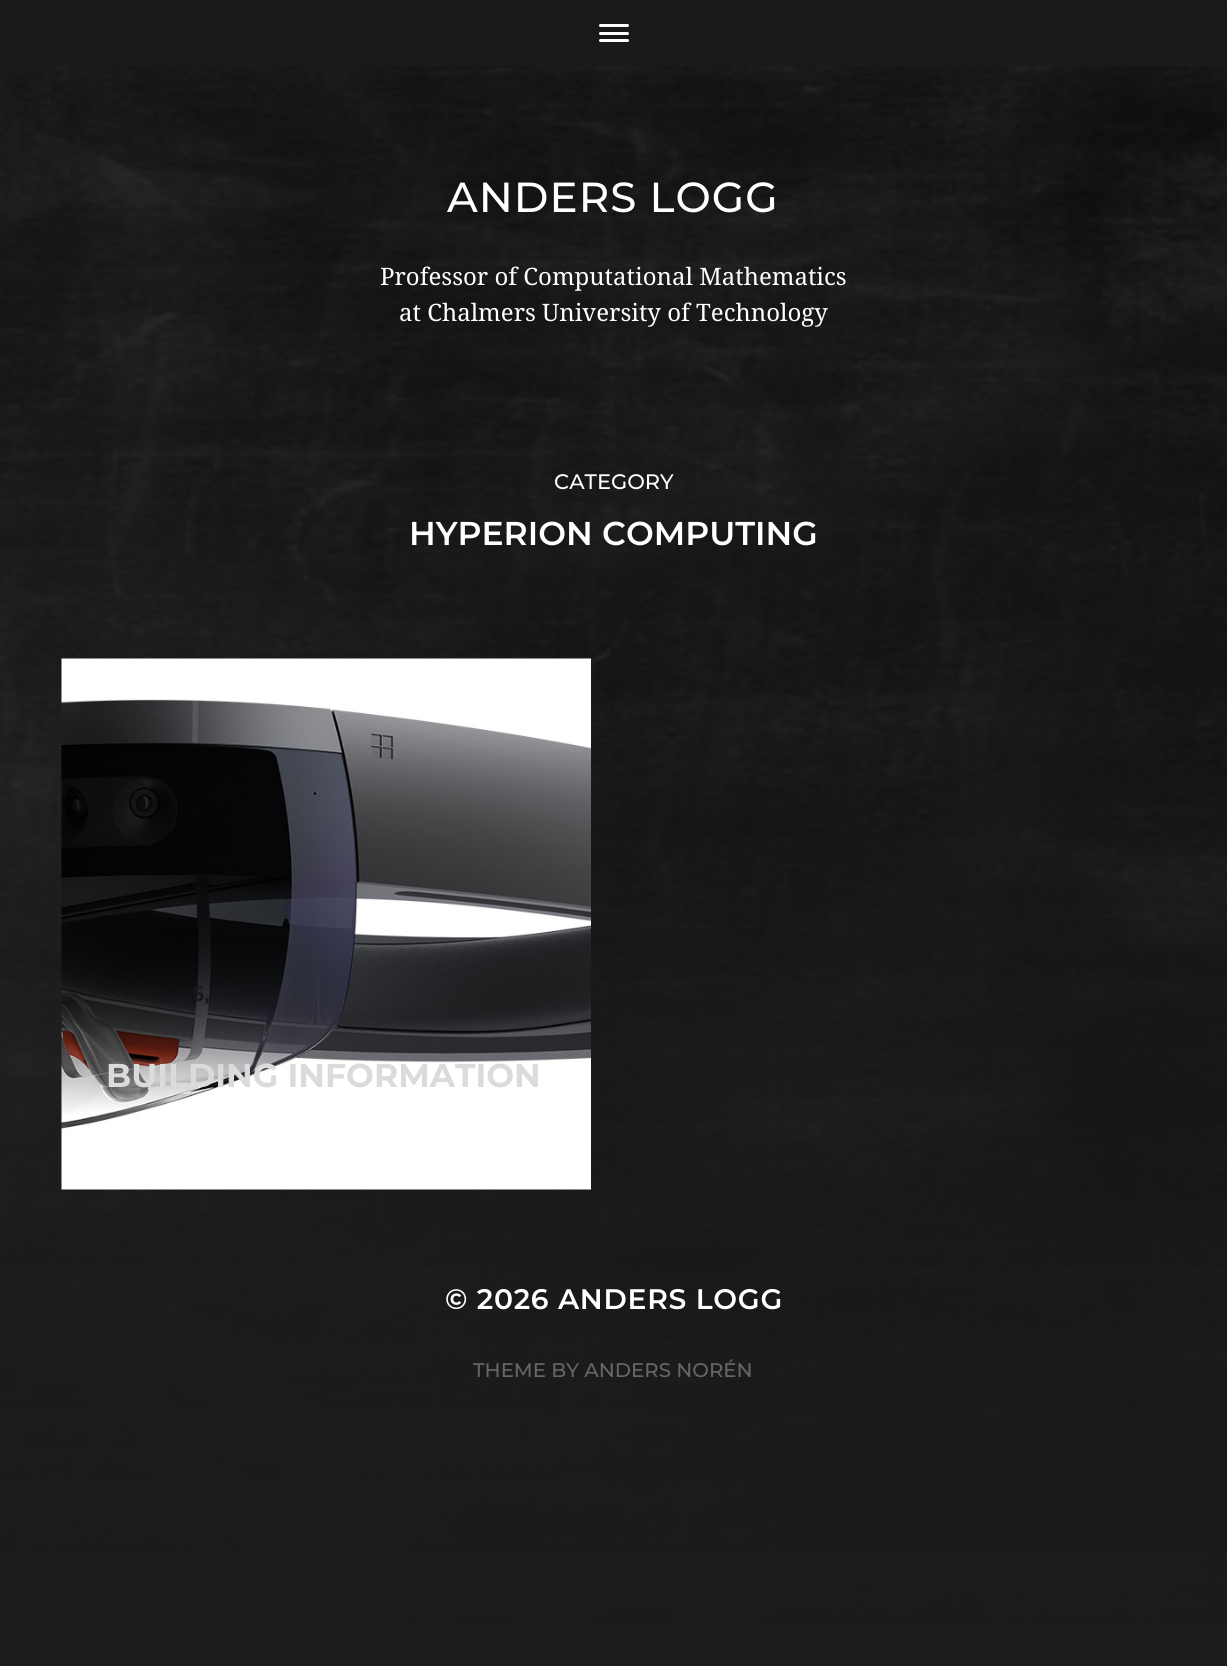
import math
import cairo

surface = cairo.ImageSurface(cairo.FORMAT_RGB24, 1227, 1666)
c = cairo.Context(surface)
options = cairo.FontOptions()
options.set_hint_metrics(cairo.HINT_METRICS_OFF)
options.set_hint_style(cairo.HINT_STYLE_NONE)
c.set_font_options(options)
c.set_miter_limit(4)
def C(code):
 c.set_source_rgb(*(v / 255 for v in bytes.fromhex(code[-6:])))
def F(family, size, italic, bold):
 c.select_font_face(family, cairo.FONT_SLANT_ITALIC if italic else cairo.FONT_SLANT_NORMAL, cairo.FONT_WEIGHT_BOLD if bold else cairo.FONT_WEIGHT_NORMAL)
 c.set_font_size(size)
def T(x, y, s):
 c.move_to(x, y)
 c.show_text(s)
def L(x, y, s, letter, word):
 c.move_to(x, y)
 for ch in s:
  c.show_text(ch)
  c.rel_move_to(letter + word * (ch == ' '), 0)
def Q(x, y, w, h, r):
 c.new_sub_path()
 for i, (u, v) in enumerate([(x + w - r, y + h - r), (x + r, y + h - r), (x + r, y + r), (x + w - r, y + r)]):
  c.arc(u, v, r, i * math.pi / 2, (i + 1) * math.pi / 2)
 c.close_path()
def I(path, x, y, w, h):
 c.save()
 c.set_source_surface(cairo.ImageSurface.create_from_png(path), x, y)
 c.rectangle(x, y, w, h)
 c.fill()
 c.restore()
C('1d1d1d')
c.paint()
C('1a1a1a')
Q(0,0,1227,66,5)
c.fill()
C('ffffff')
Q(599,24,30,3,1.5)
c.fill()
Q(599,32,30,3,1.5)
c.fill()
Q(599,39,30,3,1.5)
c.fill()
I('1.png',0,66,1227,1600)
F('Montserrat Thin',42,0,0)
L(447,212,'ANDERS LOGG',1,0)
F('Droid Serif',24,0,0)
T(380,285,'Professor of Computational Mathematics')
T(399,321,'at Chalmers University of Technology')
F('Montserrat Thin',21,0,0)
T(554,489,'CATEGORY')
F('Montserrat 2 Thin',33,0,0)
T(409,545,'HYPERION COMPUTING')
I('2.png',61,658,530,532)
F('Montserrat 2 Thin',21,0,0)
C('16171a')
T(192,1001,'5,')
F('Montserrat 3 Thin',33,0,0)
C('dbdbdb')
T(106,1087,'BUILDING INFORMATION')
F('Montserrat 2 Thin',28.25,0,0)
C('ffffff')
L(445,1309,'© 2026 ANDERS LOGG',.75,0)
F('Montserrat Thin',19.75,0,0)
C('666666')
T(473,1377,'THEME BY ANDERS NORÉN')
surface.write_to_png('o.png')
